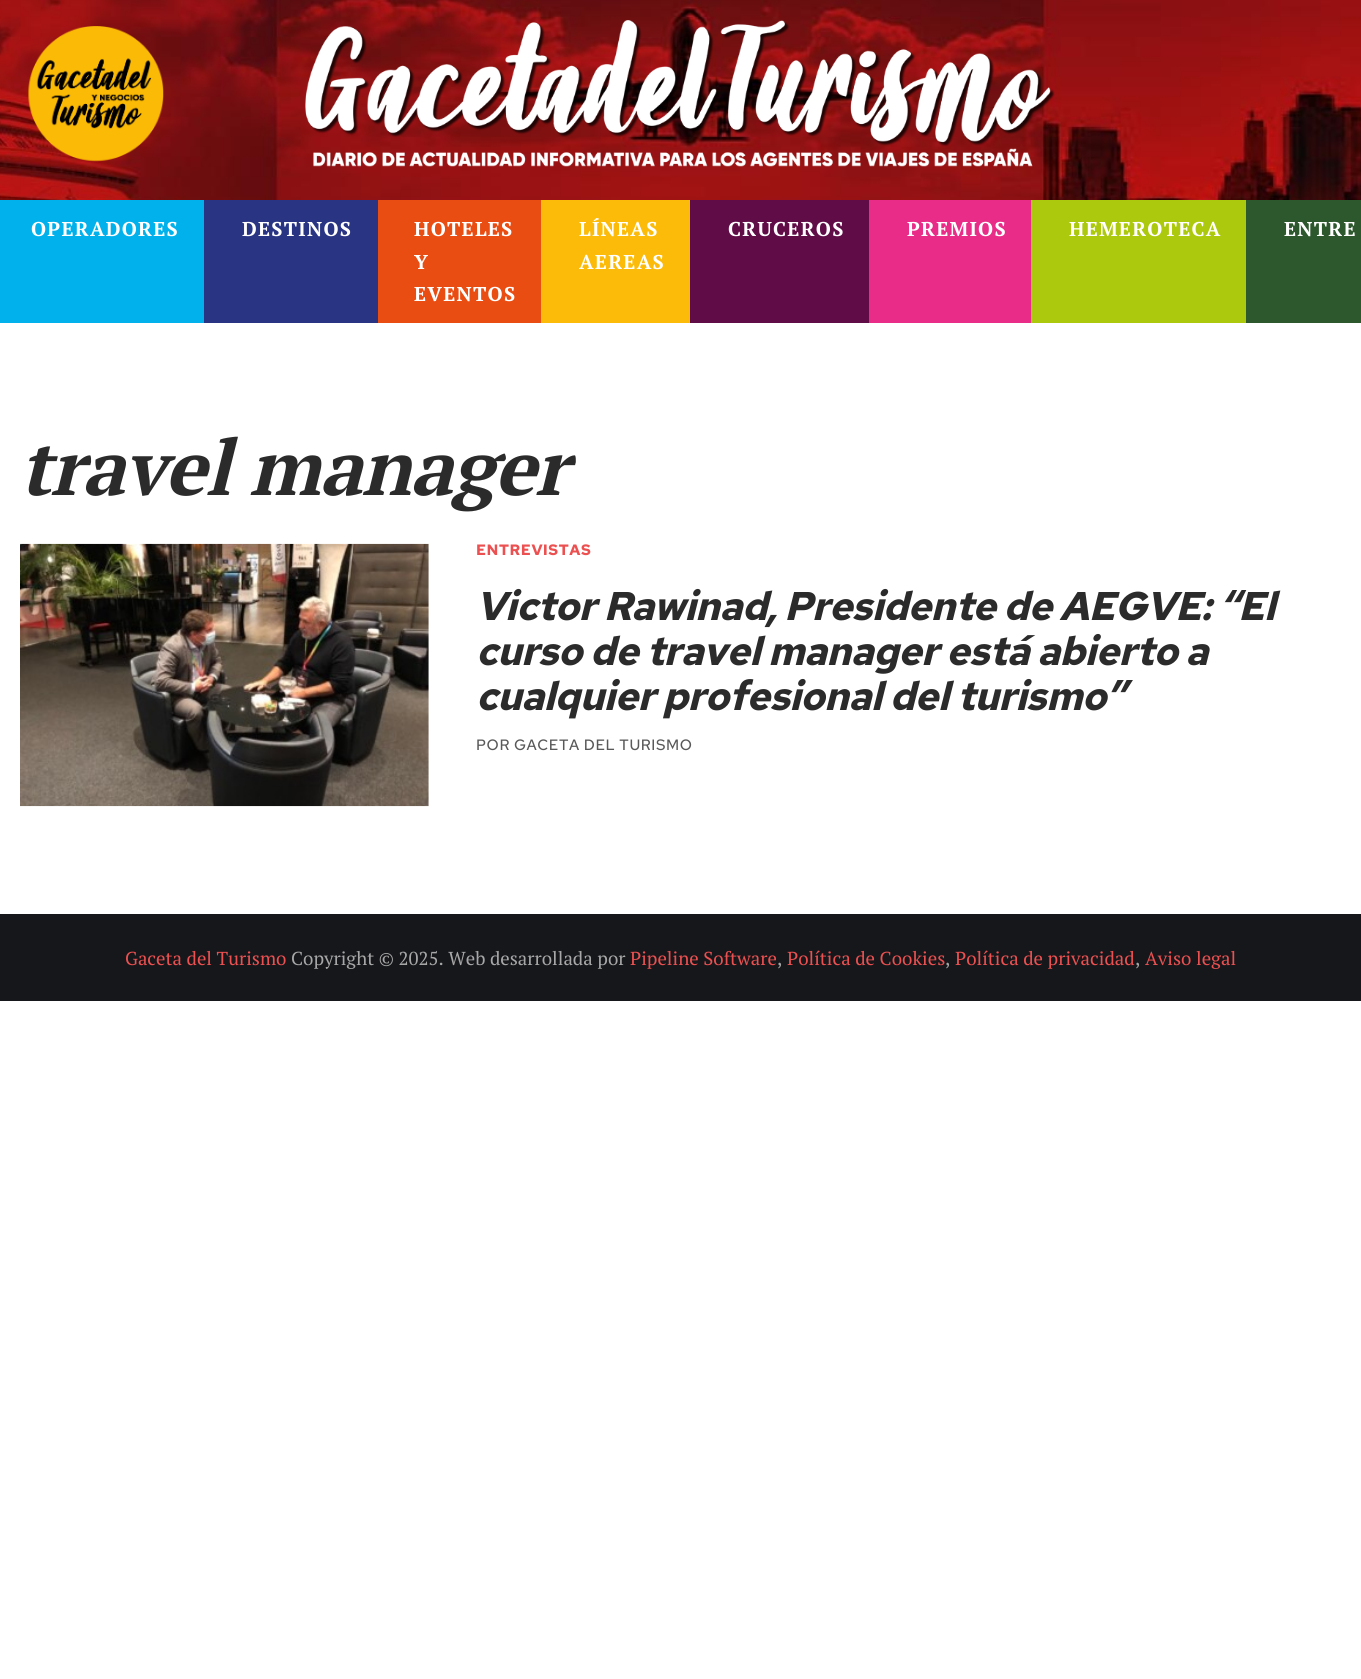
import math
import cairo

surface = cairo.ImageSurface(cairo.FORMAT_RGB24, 1361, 1679)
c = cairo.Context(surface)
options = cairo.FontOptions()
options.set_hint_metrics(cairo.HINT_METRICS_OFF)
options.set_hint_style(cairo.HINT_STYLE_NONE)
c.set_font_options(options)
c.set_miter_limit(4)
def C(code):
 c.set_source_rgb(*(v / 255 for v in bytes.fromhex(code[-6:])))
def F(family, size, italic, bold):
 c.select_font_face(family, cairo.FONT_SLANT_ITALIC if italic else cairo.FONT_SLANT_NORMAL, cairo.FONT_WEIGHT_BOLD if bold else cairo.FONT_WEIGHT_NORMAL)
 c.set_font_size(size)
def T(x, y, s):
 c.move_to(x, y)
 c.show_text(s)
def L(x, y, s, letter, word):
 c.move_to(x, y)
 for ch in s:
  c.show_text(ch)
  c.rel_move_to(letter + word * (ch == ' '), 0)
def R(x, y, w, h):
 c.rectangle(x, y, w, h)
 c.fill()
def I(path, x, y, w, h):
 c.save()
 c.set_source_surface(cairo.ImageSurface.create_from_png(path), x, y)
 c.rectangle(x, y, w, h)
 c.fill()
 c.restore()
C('ffffff')
c.paint()
I('1.png',0,0,1361,200)
I('2.png',28,26,136,136)
I('3.png',305,20,750,147)
C('01b1ec')
R(0,200,204,123)
F('PT Serif',20,0,1)
C('ffffff')
L(31,236,'OPERADORES',1.25,0)
C('293483')
R(204,200,174,123)
C('ffffff')
L(242,236,'DESTINOS',1.25,0)
C('e94d12')
R(378,200,163,123)
C('ffffff')
L(414,236,'HOTELES',1.25,0)
L(414,269,'Y',1.25,0)
L(414,301,'EVENTOS',1.25,0)
C('fcbb09')
R(541,200,149,123)
C('ffffff')
L(579,236,'LÍNEAS',1.25,0)
L(579,269,'AEREAS',1.25,0)
C('600c47')
R(690,200,179,123)
C('ffffff')
L(728,236,'CRUCEROS',1.25,0)
C('e92c88')
R(869,200,162,123)
C('ffffff')
L(907,236,'PREMIOS',1.25,0)
C('acc90d')
R(1031,200,215,123)
C('ffffff')
L(1069,236,'HEMEROTECA',1.25,0)
C('2d572c')
R(1246,200,115,123)
C('ffffff')
L(1284,236,'ENTRE',1.25,0)
F('PT Serif',77.5,1,1)
C('2b2b2b')
L(20,495,'travel manager',-1.25,0)
I('4.png',20,543,409,264)
F('Red Hat Text',15,0,1)
C('ec5050')
L(476,555,'ENTREVISTAS',.6,0)
F('Red Hat Text',40,1,1)
C('2b2b2b')
L(476,620,'Victor Rawinad, Presidente de AEGVE: “El',-.65,0)
L(476,665,'curso de travel manager está abierto a',-.65,0)
L(476,710,'cualquier profesional del turismo”',-.65,0)
F('Red Hat Text Medium',15,0,0)
C('595959')
L(476,750,'POR GACETA DEL TURISMO',.6,0)
C('16171b')
R(0,914,1361,87)
F('PT Serif',18.75,0,0)
C('ec5050')
T(125,965,'Gaceta del Turismo')
C('a7a7a7')
T(291,965,'Copyright © 2025. Web desarrollada por')
C('ec5050')
T(630,965,'Pipeline Software')
C('a7a7a7')
T(777,965,',')
C('ec5050')
T(787,965,'Política de Cookies')
C('a7a7a7')
T(945,965,',')
C('ec5050')
T(955,965,'Política de privacidad')
C('a7a7a7')
T(1135,965,',')
C('ec5050')
T(1145,965,'Aviso legal')
surface.write_to_png('o.png')
